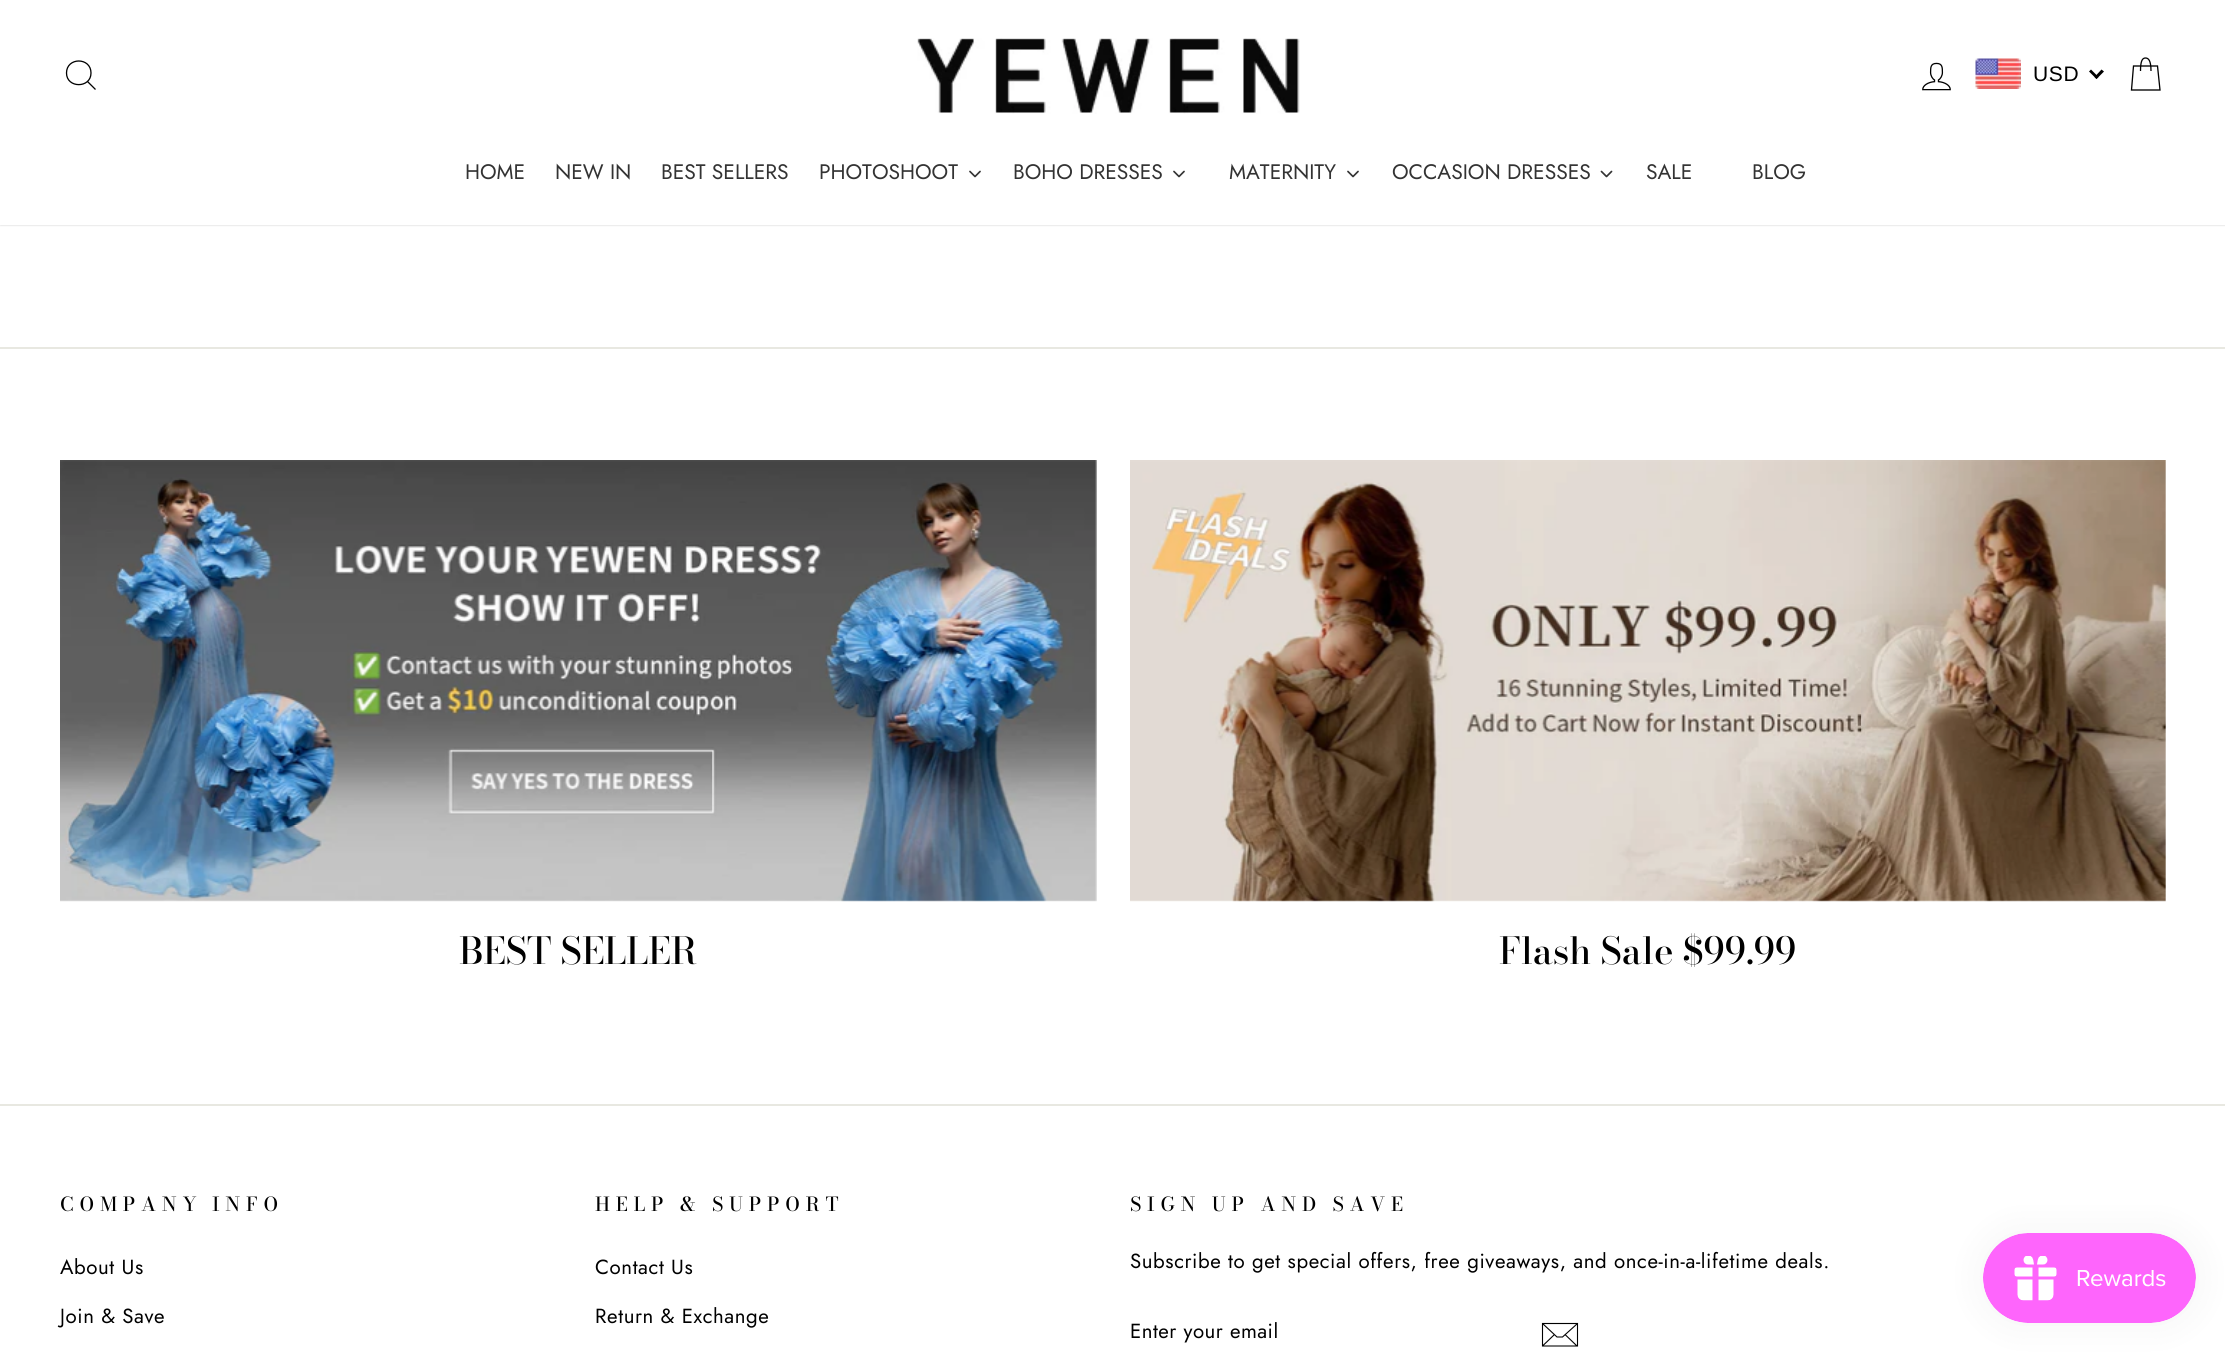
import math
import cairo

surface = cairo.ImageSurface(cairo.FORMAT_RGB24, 2225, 1352)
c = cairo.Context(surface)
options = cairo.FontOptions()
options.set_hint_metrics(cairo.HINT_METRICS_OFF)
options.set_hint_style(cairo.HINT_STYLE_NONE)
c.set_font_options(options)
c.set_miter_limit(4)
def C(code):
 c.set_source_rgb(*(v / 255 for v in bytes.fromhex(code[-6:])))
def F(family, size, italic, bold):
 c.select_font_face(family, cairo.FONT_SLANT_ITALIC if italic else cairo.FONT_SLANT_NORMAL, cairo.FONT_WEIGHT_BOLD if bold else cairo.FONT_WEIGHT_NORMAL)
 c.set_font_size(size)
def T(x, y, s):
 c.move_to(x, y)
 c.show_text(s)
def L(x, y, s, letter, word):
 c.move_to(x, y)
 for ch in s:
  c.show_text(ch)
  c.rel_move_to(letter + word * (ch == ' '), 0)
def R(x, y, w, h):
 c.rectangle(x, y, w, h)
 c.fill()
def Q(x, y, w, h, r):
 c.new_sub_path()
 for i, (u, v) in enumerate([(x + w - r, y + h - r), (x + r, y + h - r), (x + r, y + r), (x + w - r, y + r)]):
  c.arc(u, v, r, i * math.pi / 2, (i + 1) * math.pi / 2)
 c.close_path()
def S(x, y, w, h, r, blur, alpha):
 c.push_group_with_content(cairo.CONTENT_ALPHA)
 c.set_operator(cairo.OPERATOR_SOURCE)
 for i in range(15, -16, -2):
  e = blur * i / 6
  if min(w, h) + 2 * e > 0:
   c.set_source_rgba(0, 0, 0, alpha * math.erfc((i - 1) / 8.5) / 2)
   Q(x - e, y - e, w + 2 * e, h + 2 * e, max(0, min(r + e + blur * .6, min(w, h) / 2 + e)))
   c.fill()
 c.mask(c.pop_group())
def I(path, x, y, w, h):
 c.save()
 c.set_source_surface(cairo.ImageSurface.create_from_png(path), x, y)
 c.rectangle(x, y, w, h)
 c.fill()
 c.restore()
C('ffffff')
c.paint()
C('000000')
S(0,0,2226,225,0,1,.2)
C('ffffff')
R(0,0,2225,225)
c.new_path()
c.move_to(91,73)
c.curve_to(91,88.5,66.5,88.5,66.5,73)
c.curve_to(66.5,57,91,57,91,73)
c.close_path()
c.move_to(95.5,89.5)
c.line_to(87.5,81.5)
C('000000')
c.set_line_width(1.3)
c.stroke()
I('1.png',917,38,383,76)
I('2.png',1922,62,29,29)
I('3.png',1975,58,46,31)
F('Liberation Sans',21,0,0)
L(2033,81,'USD',.6,0)
c.new_path()
c.move_to(2101.5,69.5)
c.line_to(2104,71.5)
c.line_to(2096.5,79)
c.line_to(2094.5,77)
c.close_path()
c.fill()
c.new_path()
c.move_to(2091,69.5)
c.line_to(2098.5,77)
c.line_to(2096.5,79)
c.line_to(2089,71.5)
c.close_path()
c.fill()
c.new_path()
c.move_to(2140.5,71)
c.curve_to(2140.5,60.5,2142.5,58,2145.5,58)
c.curve_to(2148.5,58,2151,60.5,2151,71)
c.move_to(2133.5,66)
c.line_to(2157.5,66)
c.line_to(2160,90)
c.line_to(2131.5,90)
c.close_path()
c.stroke()
F('Jost',21,0,0)
C('333333')
T(465,179,'HOME')
T(555,179,'NEW IN')
T(661,179,'BEST SELLERS')
T(819,179,'PHOTOSHOOT')
I('4.png',969,170,12,8)
T(1013,179,'BOHO DRESSES')
I('4.png',1173,170,12,8)
T(1229,179,'MATERNITY')
I('4.png',1347,170,12,8)
T(1392,179,'OCCASION DRESSES')
I('5.png',1600,170,13,8)
T(1646,179,'SALE')
T(1752,179,'BLOG')
C('e8e8e1')
R(0,347,2225,2)
I('6.png',60,460,1037,442)
F('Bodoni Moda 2 Medium',37,0,0)
C('000000')
T(459,964,'BEST SELLER')
I('7.png',1130,460,1036,442)
T(1499,964,'Flash Sale $99.99')
C('e8e8e1')
R(0,1104,2225,2)
F('Bodoni Moda Medium',19.25,0,0)
C('000000')
L(60,1211,'COMPANY INFO',5.75,-1)
F('Jost',20.4,0,0)
L(60,1274,'About Us',.6,0)
L(60,1323,'Join & Save',.6,0)
F('Bodoni Moda Medium',19.25,0,0)
L(595,1211,'HELP & SUPPORT',5.75,0)
F('Jost',20.4,0,0)
L(595,1274,'Contact Us',.6,0)
L(595,1323,'Return & Exchange',.6,0)
F('Bodoni Moda Medium',19.25,0,0)
L(1130,1211,'SIGN UP AND SAVE',5.75,0)
F('Jost',20.4,0,0)
L(1130,1268,'Subscribe to get special offers, free giveaways, and once-in-a-lifetime deals.',.6,0)
L(1130,1338,'Enter your email',.5,0)
c.new_path()
c.move_to(1577.5,1346)
c.line_to(1542.5,1346)
c.line_to(1542.5,1323.5)
c.line_to(1577.5,1323.5)
c.close_path()
c.move_to(1542.5,1323.5)
c.line_to(1557,1337)
c.line_to(1562.5,1337)
c.line_to(1577.5,1323.5)
c.move_to(1554.5,1334.5)
c.line_to(1543,1345.5)
c.move_to(1577,1346)
c.line_to(1565,1334.5)
c.set_line_width(1.1)
c.stroke()
C('000000')
S(1983,1233,213,90,45,19,.05)
I('8.png',1983,1233,213,90)
surface.write_to_png('o.png')
